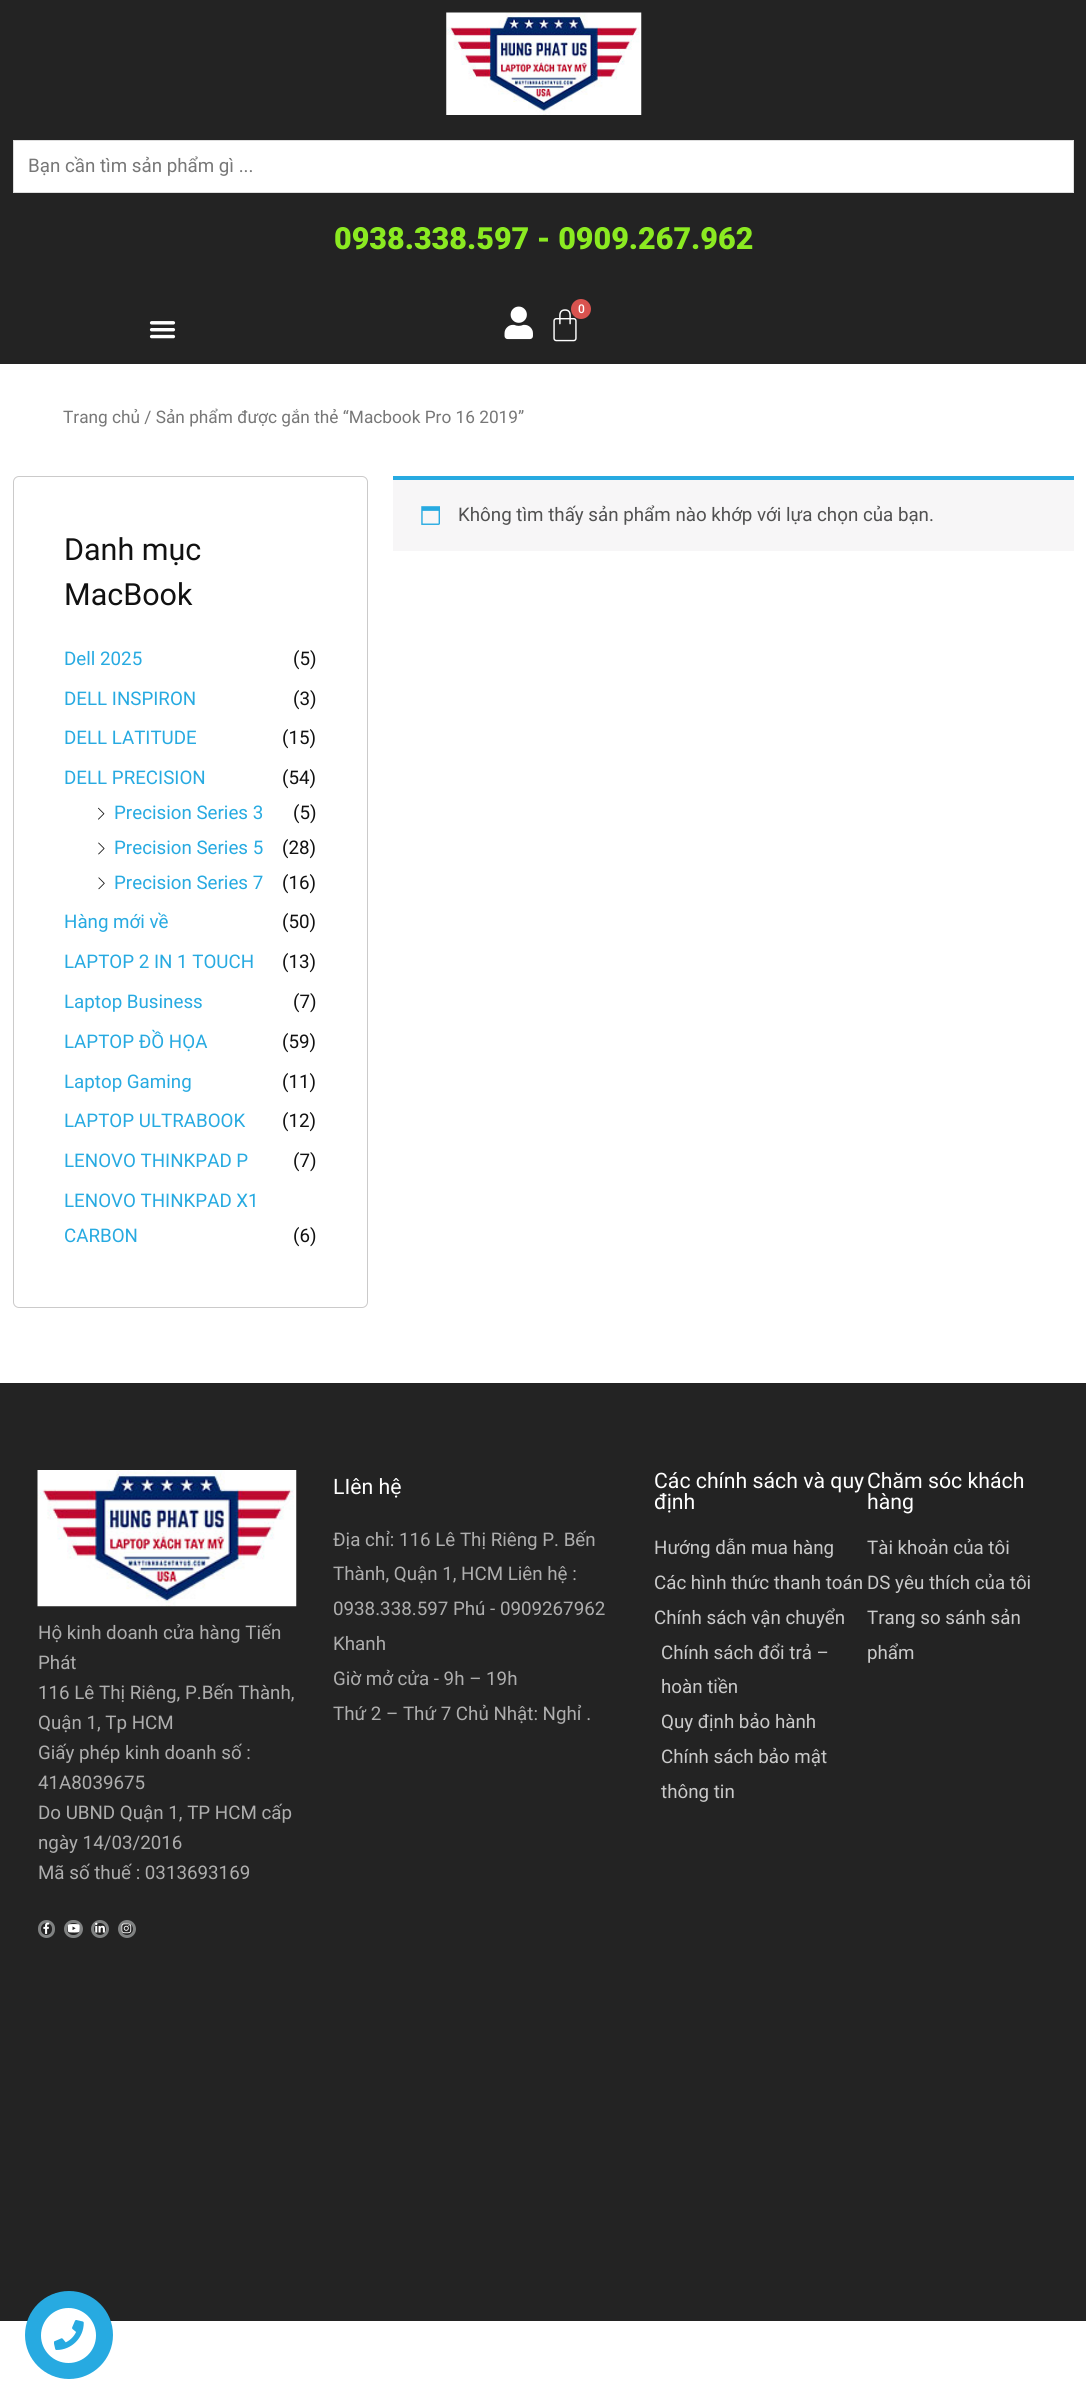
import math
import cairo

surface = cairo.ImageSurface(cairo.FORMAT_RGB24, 1086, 2403)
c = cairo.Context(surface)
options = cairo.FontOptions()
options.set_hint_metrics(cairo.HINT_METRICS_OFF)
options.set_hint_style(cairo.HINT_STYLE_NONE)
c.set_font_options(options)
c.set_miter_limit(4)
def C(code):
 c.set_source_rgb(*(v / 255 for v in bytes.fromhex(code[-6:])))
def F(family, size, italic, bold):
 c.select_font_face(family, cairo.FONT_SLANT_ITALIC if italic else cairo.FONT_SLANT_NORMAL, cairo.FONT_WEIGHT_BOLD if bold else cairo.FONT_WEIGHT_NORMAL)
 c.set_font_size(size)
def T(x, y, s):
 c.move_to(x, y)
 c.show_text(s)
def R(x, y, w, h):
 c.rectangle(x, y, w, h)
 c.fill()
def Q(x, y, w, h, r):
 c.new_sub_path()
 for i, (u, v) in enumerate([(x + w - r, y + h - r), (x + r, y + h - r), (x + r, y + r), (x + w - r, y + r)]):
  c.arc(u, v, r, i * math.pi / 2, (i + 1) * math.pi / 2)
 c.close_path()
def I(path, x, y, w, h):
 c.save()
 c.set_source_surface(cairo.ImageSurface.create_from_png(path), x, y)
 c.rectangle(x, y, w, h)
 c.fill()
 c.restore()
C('ffffff')
c.paint()
C('232323')
R(0,0,1086,364)
I('1.png',446,12,196,103)
C('ffffff')
c.rectangle(13.5,140.5,1060,52)
c.fill_preserve()
C('dddddd')
c.set_line_width(1)
c.stroke()
F('Roboto',18.75,0,0)
C('777777')
T(28,172,'Bạn cần tìm sản phẩm gì ...')
F('Roboto Black',30.5,0,0)
C('8bea21')
T(334,249,'0938.338.597 - 0909.267.962')
I('2.png',504,306,29,34)
I('3.png',553,309,24,33)
C('d9534f')
c.arc(581,309,10,0,2 * math.pi)
c.fill()
F('Roboto Medium',12,0,0)
C('ffffff')
T(578,313,'0')
I('4.png',149,321,27,18)
F('Roboto',17.25,0,0)
C('777777')
T(63,423,'Trang chủ / Sản phẩm được gắn thẻ “Macbook Pro 16 2019”')
C('f7f6f7')
R(393,480,681,71)
C('27aae1')
R(393,476,681,4)
I('5.png',421,506,19,19)
F('Roboto',18.75,0,0)
C('515151')
T(458,521,'Không tìm thấy sản phẩm nào khớp với lựa chọn của bạn.')
Q(13.5,476.5,354,831,5.5)
C('cbcaca')
c.stroke()
F('Roboto',30.5,0,0)
C('111111')
T(64,560,'Danh mục')
T(64,605,'MacBook')
F('Roboto',18.75,0,0)
C('27aae1')
T(64,665,'Dell 2025')
C('111111')
T(293,665,'(5)')
C('27aae1')
T(64,705,'DELL INSPIRON')
C('111111')
T(293,705,'(3)')
C('27aae1')
T(64,744,'DELL LATITUDE')
C('111111')
T(282,744,'(15)')
C('27aae1')
T(64,784,'DELL PRECISION')
C('111111')
T(282,784,'(54)')
I('6.png',98,807,7,13)
C('27aae1')
T(114,819,'Precision Series 3')
C('111111')
T(293,819,'(5)')
I('7.png',98,842,7,13)
C('27aae1')
T(114,854,'Precision Series 5')
C('111111')
T(282,854,'(28)')
I('8.png',98,877,7,13)
C('27aae1')
T(114,889,'Precision Series 7')
C('111111')
T(282,889,'(16)')
C('27aae1')
T(64,928,'Hàng mới về')
C('111111')
T(282,928,'(50)')
C('27aae1')
T(64,968,'LAPTOP 2 IN 1 TOUCH')
C('111111')
T(282,968,'(13)')
C('27aae1')
T(64,1008,'Laptop Business')
C('111111')
T(293,1008,'(7)')
C('27aae1')
T(64,1048,'LAPTOP ĐỒ HỌA')
C('111111')
T(282,1048,'(59)')
C('27aae1')
T(64,1088,'Laptop Gaming')
C('111111')
T(282,1088,'(11)')
C('27aae1')
T(64,1127,'LAPTOP ULTRABOOK')
C('111111')
T(282,1127,'(12)')
C('27aae1')
T(64,1167,'LENOVO THINKPAD P')
C('111111')
T(293,1167,'(7)')
C('27aae1')
T(64,1207,'LENOVO THINKPAD X1')
T(64,1242,'CARBON')
C('111111')
T(293,1242,'(6)')
C('232323')
R(0,1383,1086,938)
I('9.png',37,1470,260,137)
C('aeaeae')
T(38,1639,'Hộ kinh doanh cửa hàng Tiến')
T(38,1669,'Phát')
T(38,1699,'116 Lê Thị Riêng, P.Bến Thành,')
T(38,1729,'Quận 1, Tp HCM')
T(38,1759,'Giấy phép kinh doanh số :')
T(38,1789,'41A8039675')
T(38,1819,'Do UBND Quận 1, TP HCM cấp')
T(38,1849,'ngày 14/03/2016')
T(38,1879,'Mã số thuế : 0313693169')
Q(39.5,1921.5,14,15,7)
C('808282')
c.set_line_width(3)
c.stroke()
I('10.png',43,1922,7,12)
Q(65.5,1921.5,16,15,7.5)
c.stroke()
I('11.png',67,1924,13,9)
c.arc(100,1929,7.5,0,2 * math.pi)
c.stroke()
I('12.png',95,1922,10,11)
c.arc(127,1929,7.5,0,2 * math.pi)
c.stroke()
I('13.png',121,1923,11,11)
F('Roboto',21.25,0,0)
C('ffffff')
T(333,1494,'LIên hệ')
F('Roboto',18.75,0,0)
C('aeaeae')
T(333,1546,'Địa chỉ: 116 Lê Thị Riêng P. Bến')
T(333,1580,'Thành, Quận 1, HCM Liên hệ :')
T(333,1615,'0938.338.597 Phú - 0909267962')
T(333,1650,'Khanh')
T(333,1685,'Giờ mở cửa - 9h – 19h')
T(333,1720,'Thứ 2 – Thứ 7 Chủ Nhật: Nghỉ .')
F('Roboto',21.25,0,0)
C('ffffff')
T(654,1488,'Các chính sách và quy')
T(654,1509,'định')
F('Roboto',18.75,0,0)
C('cacaca')
T(654,1554,'Hướng dẫn mua hàng')
T(654,1589,'Các hình thức thanh toán')
T(654,1624,'Chính sách vận chuyển')
T(661,1659,'Chính sách đổi trả –')
T(661,1693,'hoàn tiền')
T(661,1728,'Quy định bảo hành')
T(661,1763,'Chính sách bảo mật')
T(661,1798,'thông tin')
F('Roboto',21.25,0,0)
C('ffffff')
T(867,1488,'Chăm sóc khách')
T(867,1509,'hàng')
F('Roboto',18.75,0,0)
C('cacaca')
T(867,1554,'Tài khoản của tôi')
T(867,1589,'DS yêu thích của tôi')
T(867,1624,'Trang so sánh sản')
T(867,1659,'phẩm')
C('27aae1')
c.new_path()
c.arc(69,2335,44,0,2 * math.pi)
c.fill()
C('ffffff')
c.arc(68.5,2335.5,27.5,0,2 * math.pi)
c.fill()
I('14.png',54,2320,30,30)
surface.write_to_png('o.png')
